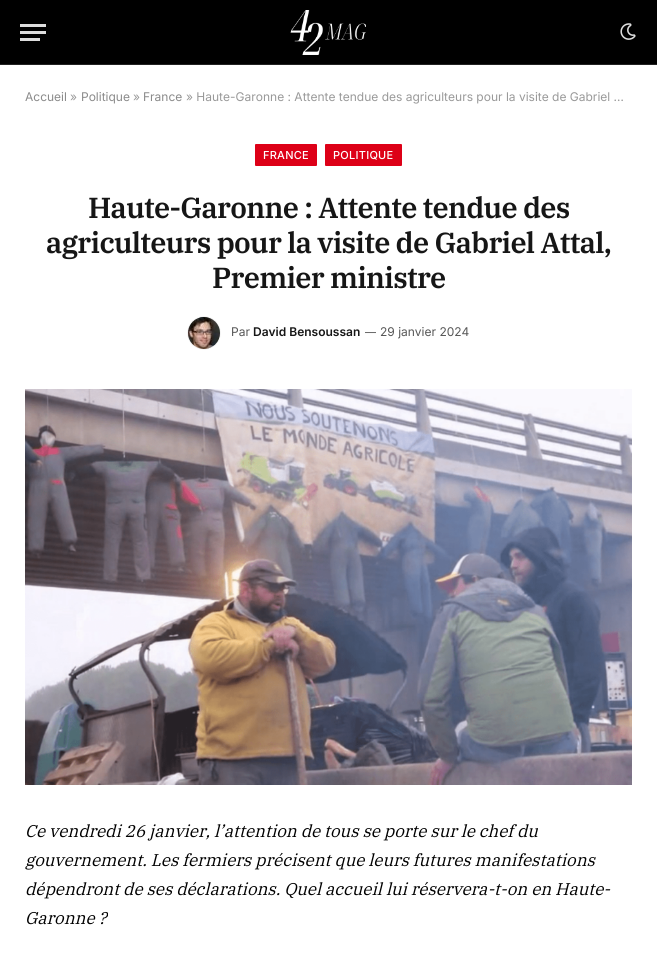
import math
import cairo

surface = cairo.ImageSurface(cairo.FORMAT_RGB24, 657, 958)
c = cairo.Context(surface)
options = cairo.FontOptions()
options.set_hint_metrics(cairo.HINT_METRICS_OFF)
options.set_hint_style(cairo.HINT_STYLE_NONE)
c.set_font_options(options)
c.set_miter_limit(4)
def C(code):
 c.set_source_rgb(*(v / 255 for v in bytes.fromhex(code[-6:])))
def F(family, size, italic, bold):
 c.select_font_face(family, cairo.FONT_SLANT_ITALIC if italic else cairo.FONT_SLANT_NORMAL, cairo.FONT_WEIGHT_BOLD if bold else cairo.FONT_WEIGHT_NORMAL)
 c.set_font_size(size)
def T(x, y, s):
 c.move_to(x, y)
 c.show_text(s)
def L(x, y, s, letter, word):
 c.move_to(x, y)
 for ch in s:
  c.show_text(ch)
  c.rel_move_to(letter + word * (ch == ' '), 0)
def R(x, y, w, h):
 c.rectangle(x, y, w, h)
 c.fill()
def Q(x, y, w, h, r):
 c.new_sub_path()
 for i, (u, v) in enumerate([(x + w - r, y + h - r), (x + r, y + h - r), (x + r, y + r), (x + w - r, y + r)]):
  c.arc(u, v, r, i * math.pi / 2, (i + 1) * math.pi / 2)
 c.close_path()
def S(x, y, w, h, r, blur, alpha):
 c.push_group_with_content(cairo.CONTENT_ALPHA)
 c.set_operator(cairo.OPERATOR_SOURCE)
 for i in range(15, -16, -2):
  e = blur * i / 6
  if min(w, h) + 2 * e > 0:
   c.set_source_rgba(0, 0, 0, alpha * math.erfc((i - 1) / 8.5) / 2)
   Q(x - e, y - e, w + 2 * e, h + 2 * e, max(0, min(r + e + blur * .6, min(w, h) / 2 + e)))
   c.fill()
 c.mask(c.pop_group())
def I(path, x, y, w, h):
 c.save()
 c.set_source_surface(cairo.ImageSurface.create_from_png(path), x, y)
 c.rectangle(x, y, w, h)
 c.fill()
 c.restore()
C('ffffff')
c.paint()
C('000000')
R(0,0,657,64)
C('222222')
R(0,64,657,1)
C('dddddd')
R(20,38,20,3)
R(20,24,26,3)
R(20,31,26,3)
I('1.png',290,10,76,45)
I('2.png',620,23,16,17)
F('Inter',12,0,0)
C('8a8a8a')
T(25,101,'Accueil')
C('999999')
T(70,101,'»')
C('8a8a8a')
T(81,101,'Politique')
C('999999')
T(133,101,'»')
C('8a8a8a')
T(143,101,'France')
C('999999')
T(186,101,'» Haute-Garonne : Attente tendue des agriculteurs pour la visite de Gabriel …')
C('dd0017')
Q(255,144,62,22,1)
c.fill()
F('Inter Medium',11,0,0)
C('ffffff')
L(263,159,'FRANCE',.25,0)
C('dd0017')
Q(325,144,77,22,1)
c.fill()
C('ffffff')
L(333,159,'POLITIQUE',.25,0)
F('IBM Plex Serif SemiBold',29,0,0)
C('161616')
L(88,218,'Haute-Garonne : Attente tendue des',-.7,0)
L(46,253,'agriculteurs pour la visite de Gabriel Attal,',-.7,0)
L(212,288,'Premier ministre',-.7,0)
C('000000')
S(188,317,32,32,16,.5,.2)
I('3.png',188,317,32,32)
F('Inter',12,0,0)
C('565656')
T(231,336,'Par')
F('Inter SemiBold',12,0,0)
C('161616')
T(253,336,'David Bensoussan')
F('Inter',11,0,0)
C('565656')
T(365,336,'—')
F('Inter',12,0,0)
T(380,336,'29 janvier 2024')
I('4.png',25,389,607,396)
F('IBM Plex Serif',17,1,0)
C('000000')
T(25,837,'Ce vendredi 26 janvier, l’attention de tous se porte sur le chef du')
T(25,866,'gouvernement. Les fermiers précisent que leurs futures manifestations')
T(25,895,'dépendront de ses déclarations. Quel accueil lui réservera-t-on en Haute-')
T(25,924,'Garonne ?')
surface.write_to_png('o.png')
